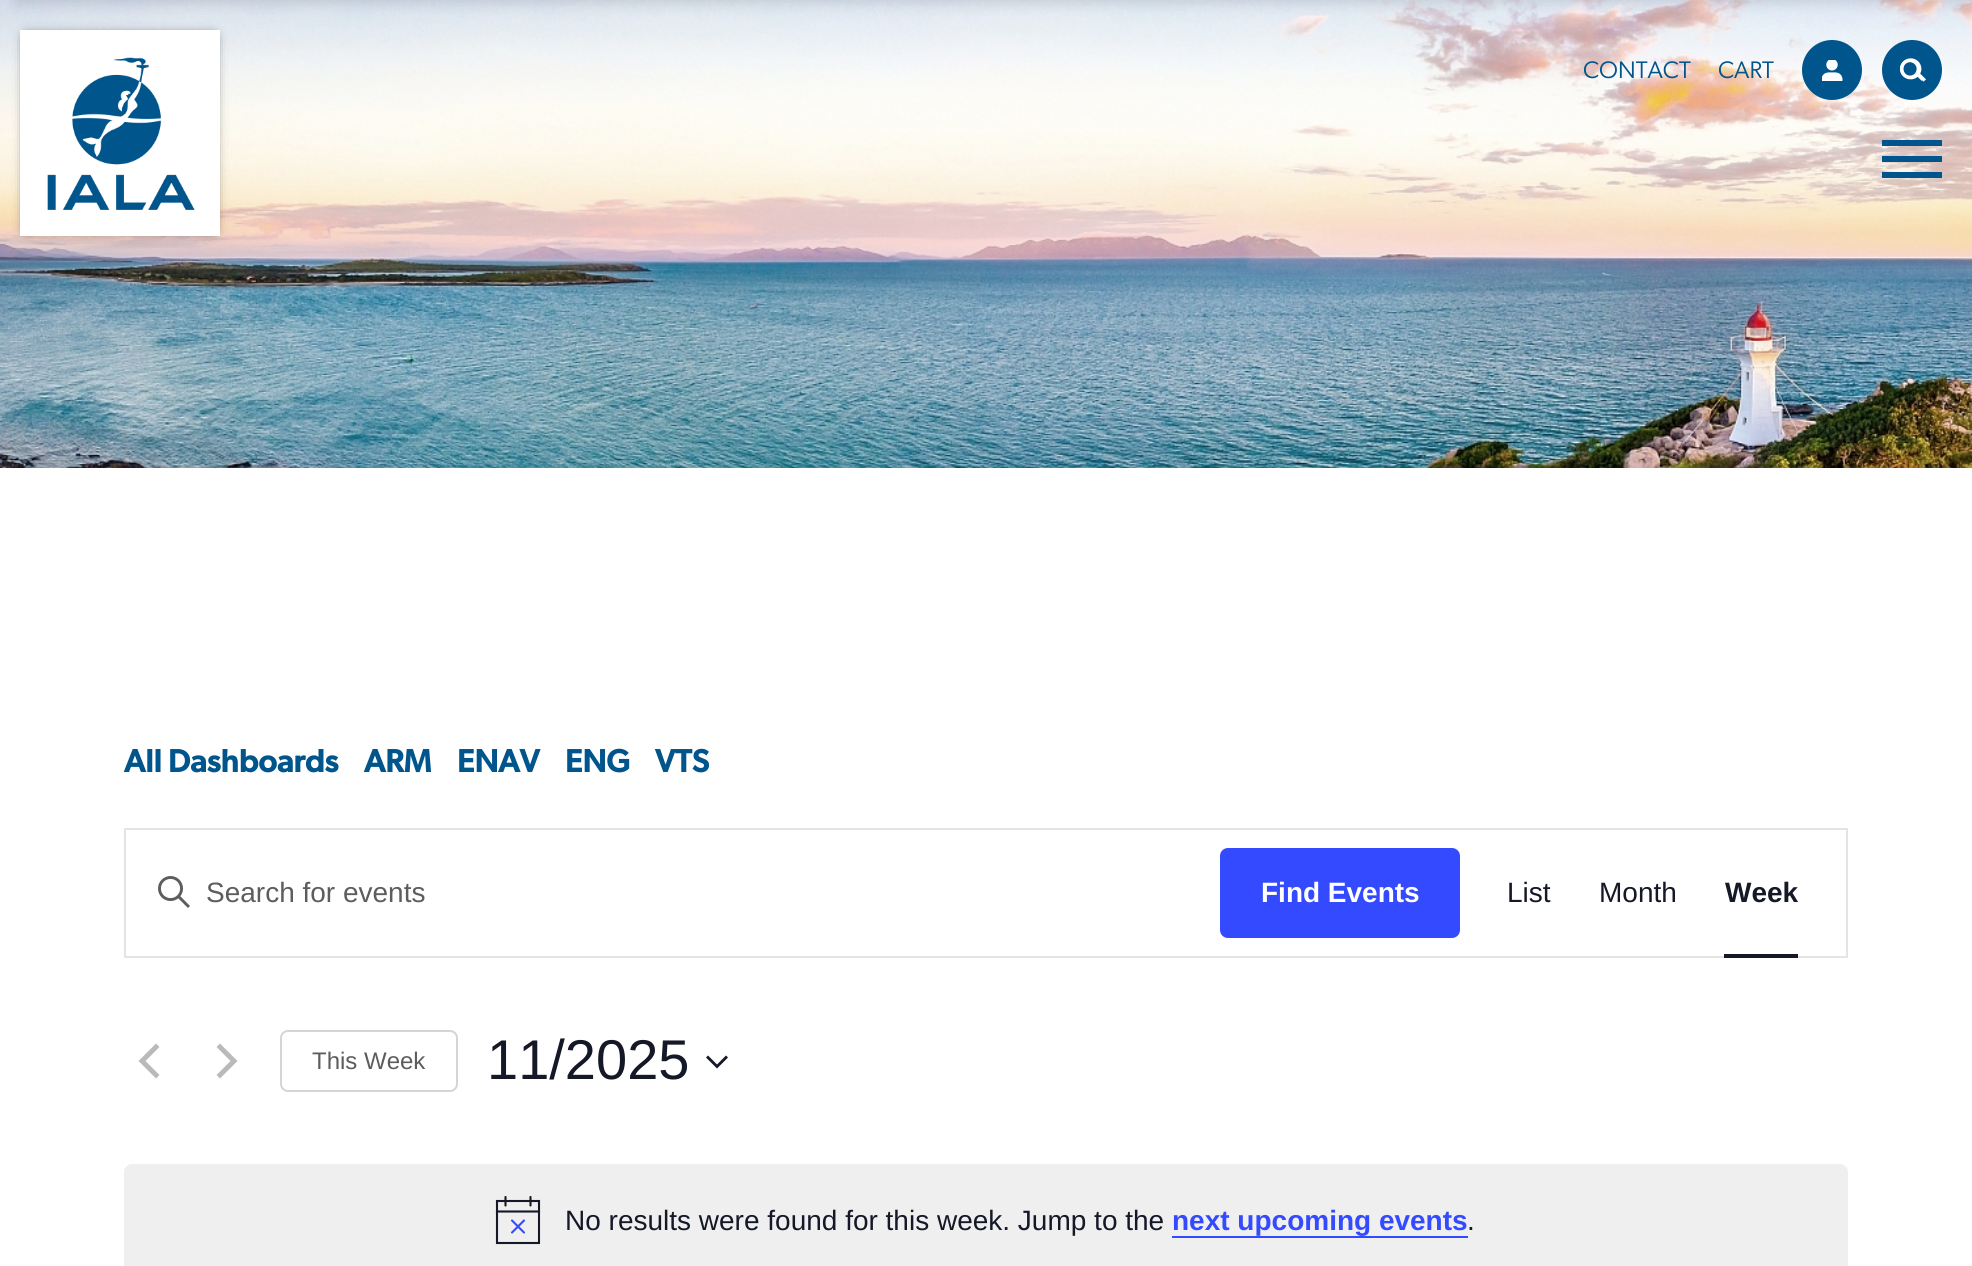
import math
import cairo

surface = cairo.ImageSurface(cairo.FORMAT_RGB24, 1972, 1266)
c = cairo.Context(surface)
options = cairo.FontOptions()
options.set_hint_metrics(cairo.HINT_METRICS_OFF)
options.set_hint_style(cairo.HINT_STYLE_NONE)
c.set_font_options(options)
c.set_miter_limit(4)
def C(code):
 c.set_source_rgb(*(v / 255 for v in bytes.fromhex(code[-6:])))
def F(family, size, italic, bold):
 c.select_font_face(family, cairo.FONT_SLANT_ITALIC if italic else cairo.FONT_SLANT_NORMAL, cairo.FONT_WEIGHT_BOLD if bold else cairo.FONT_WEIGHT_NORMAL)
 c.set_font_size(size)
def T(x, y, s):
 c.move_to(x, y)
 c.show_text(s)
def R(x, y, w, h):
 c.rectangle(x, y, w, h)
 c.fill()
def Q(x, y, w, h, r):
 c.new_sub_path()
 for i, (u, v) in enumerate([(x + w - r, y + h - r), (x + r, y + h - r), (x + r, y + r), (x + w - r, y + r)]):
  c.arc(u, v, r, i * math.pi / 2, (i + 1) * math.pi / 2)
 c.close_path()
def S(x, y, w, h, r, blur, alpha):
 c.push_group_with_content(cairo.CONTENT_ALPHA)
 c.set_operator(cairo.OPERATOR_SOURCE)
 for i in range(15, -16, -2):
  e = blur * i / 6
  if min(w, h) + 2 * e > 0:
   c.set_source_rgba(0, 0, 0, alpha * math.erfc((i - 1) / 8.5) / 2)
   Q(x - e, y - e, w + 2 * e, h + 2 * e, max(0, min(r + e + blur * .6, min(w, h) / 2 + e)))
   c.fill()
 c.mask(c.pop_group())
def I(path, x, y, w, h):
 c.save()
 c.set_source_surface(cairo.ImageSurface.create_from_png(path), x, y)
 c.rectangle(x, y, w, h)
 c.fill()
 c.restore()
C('ffffff')
c.paint()
I('1.png',0,0,1972,468)
C('000000')
S(16,-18,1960,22,0,6,.1)
S(26,36,188,194,0,6,.8)
I('2.png',20,30,200,206)
F('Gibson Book',24,0,0)
C('00558c')
T(1583,78,'CONTACT')
T(1718,78,'CART')
c.new_path()
c.arc(1832,70,30,0,2 * math.pi)
c.fill()
I('3.png',1822,60,21,21)
c.arc(1912,70,30,0,2 * math.pi)
c.fill()
I('4.png',1900,58,26,24)
I('5.png',1900,60,23,21)
R(1882,140,60,6)
R(1882,156,60,6)
R(1882,172,60,6)
F('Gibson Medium',32,0,1)
T(124,772,'All Dashboards')
T(364,772,'ARM')
T(457,772,'ENAV')
T(565,772,'ENG')
T(655,772,'VTS')
c.rectangle(125,829,1722,128)
C('e4e4e4')
c.stroke()
I('6.png',158,876,32,32)
F('Liberation Sans',28,0,0)
C('5d5d5d')
T(206,902,'Search for events')
C('334aff')
Q(1220,848,240,90,8)
c.fill()
F('Liberation Sans',28,0,1)
C('ffffff')
T(1261,902,'Find Events')
F('Liberation Sans',28,0,0)
C('141827')
T(1507,902,'List')
T(1599,902,'Month')
F('Liberation Sans',28,0,1)
T(1725,902,'Week')
R(1724,954,74,4)
C('bababa')
c.new_path()
c.move_to(159.5,1075)
c.line_to(156,1078.5)
c.line_to(138.5,1061)
c.line_to(156,1043.5)
c.line_to(159.5,1047)
c.line_to(145.5,1061)
c.close_path()
c.fill()
c.new_path()
c.move_to(216.5,1047)
c.line_to(220,1043.5)
c.line_to(237.5,1061)
c.line_to(220,1078.5)
c.line_to(216.5,1075)
c.line_to(230.5,1061)
c.close_path()
c.fill()
Q(281,1031,176,60,7)
C('d5d5d5')
c.stroke()
F('Liberation Sans',24,0,0)
C('5d5d5d')
T(312,1069,'This Week')
F('Liberation Sans',56,0,0)
C('141827')
T(487,1079,'11/2025')
c.set_fill_rule(cairo.FILL_RULE_EVEN_ODD)
c.new_path()
c.move_to(708,1055.5)
c.line_to(717,1064.5)
c.line_to(726,1055.5)
c.line_to(728,1057.5)
c.line_to(717,1068.5)
c.line_to(706,1057.5)
c.close_path()
c.fill()
C('efeff0')
Q(124,1164,1724,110,8)
c.fill()
c.new_path()
c.move_to(497,1201)
c.line_to(539,1201)
c.line_to(539,1243)
c.line_to(497,1243)
c.close_path()
C('141827')
c.set_line_width(2.1)
c.stroke()
c.new_path()
c.move_to(512,1220.5)
c.line_to(524,1232.5)
c.move_to(524,1220.5)
c.line_to(512,1232.5)
C('334aff')
c.set_line_cap(cairo.LINE_CAP_ROUND)
c.stroke()
c.new_path()
c.move_to(505.5,1197)
c.line_to(505.5,1205.5)
c.move_to(530.5,1197)
c.line_to(530.5,1205.5)
C('141827')
c.stroke()
c.new_path()
c.move_to(497,1211.5)
c.line_to(539,1211.5)
c.set_line_cap(cairo.LINE_CAP_SQUARE)
c.stroke()
F('Liberation Sans',28,0,0)
T(565,1230,'No results were found for this week. Jump to the')
F('Liberation Sans',28,0,1)
C('334aff')
T(1172,1230,'next upcoming events')
R(1172,1236,296,2)
F('Liberation Sans',28,0,0)
C('141827')
T(1467,1230,'.')
surface.write_to_png('o.png')
